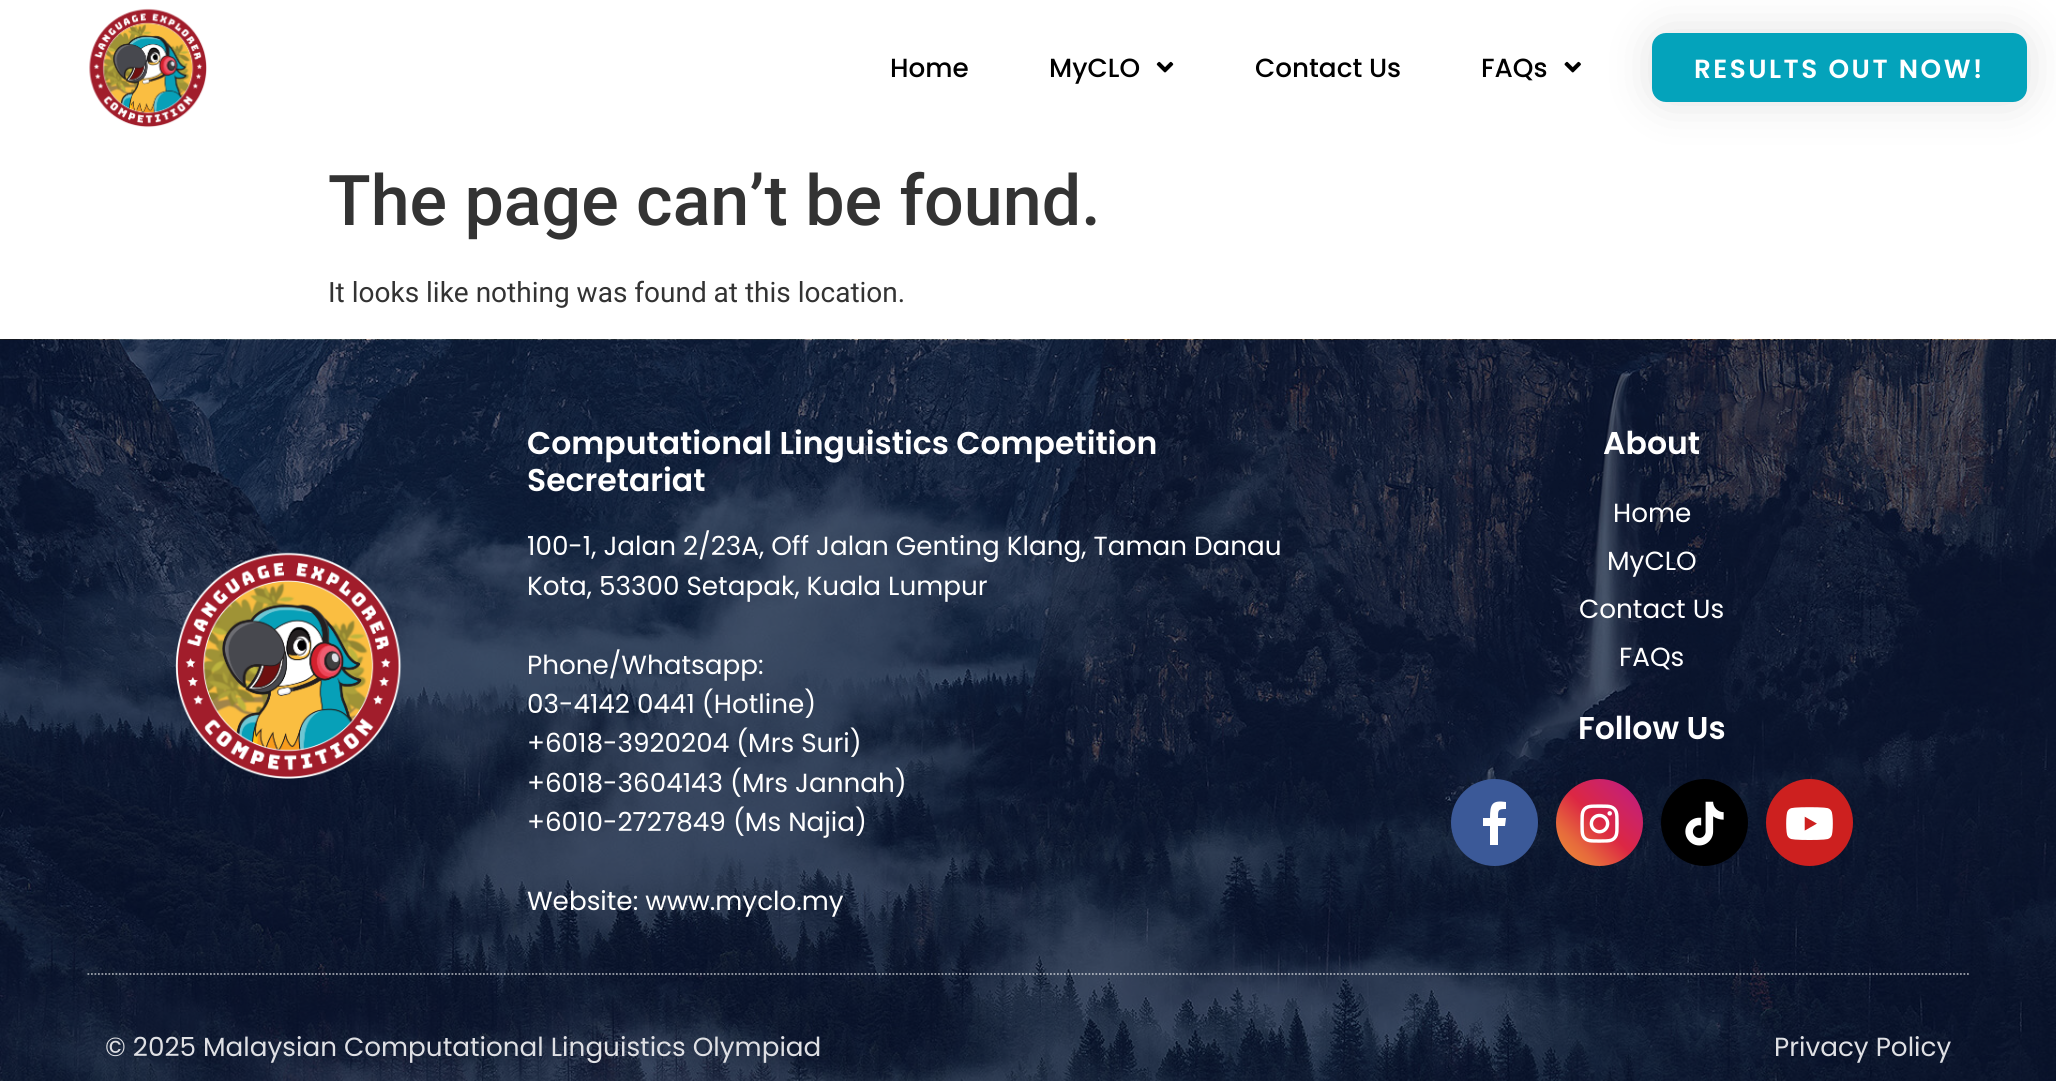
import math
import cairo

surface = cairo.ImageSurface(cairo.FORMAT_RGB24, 2056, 1081)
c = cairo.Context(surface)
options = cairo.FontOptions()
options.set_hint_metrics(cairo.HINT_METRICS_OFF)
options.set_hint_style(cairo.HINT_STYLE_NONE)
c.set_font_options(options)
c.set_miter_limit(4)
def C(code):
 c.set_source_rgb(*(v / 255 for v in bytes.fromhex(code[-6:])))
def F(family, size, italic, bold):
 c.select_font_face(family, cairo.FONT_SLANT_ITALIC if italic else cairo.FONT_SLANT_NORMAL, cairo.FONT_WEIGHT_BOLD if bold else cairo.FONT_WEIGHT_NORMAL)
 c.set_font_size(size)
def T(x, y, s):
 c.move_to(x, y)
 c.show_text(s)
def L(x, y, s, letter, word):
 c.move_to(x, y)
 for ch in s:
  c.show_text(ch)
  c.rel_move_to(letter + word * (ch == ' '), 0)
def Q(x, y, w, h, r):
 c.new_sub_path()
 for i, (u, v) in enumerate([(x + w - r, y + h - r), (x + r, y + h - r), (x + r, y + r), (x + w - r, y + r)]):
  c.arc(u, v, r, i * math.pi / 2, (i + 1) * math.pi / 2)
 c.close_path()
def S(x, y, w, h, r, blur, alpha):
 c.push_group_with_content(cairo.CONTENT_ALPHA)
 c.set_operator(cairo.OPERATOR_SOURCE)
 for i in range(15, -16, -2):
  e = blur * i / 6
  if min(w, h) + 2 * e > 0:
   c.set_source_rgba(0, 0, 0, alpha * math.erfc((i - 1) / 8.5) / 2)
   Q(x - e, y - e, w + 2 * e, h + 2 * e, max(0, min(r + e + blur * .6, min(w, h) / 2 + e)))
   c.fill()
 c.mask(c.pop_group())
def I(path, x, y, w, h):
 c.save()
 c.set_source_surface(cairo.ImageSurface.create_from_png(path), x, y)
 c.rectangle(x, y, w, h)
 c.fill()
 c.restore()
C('ffffff')
c.paint()
I('1.png',89,8,118,120)
F('Poppins Medium',26.25,0,0)
C('000000')
T(890,77,'Home')
T(1049,77,'MyCLO')
I('2.png',1156,61,18,12)
T(1255,77,'Contact Us')
T(1481,77,'FAQs')
C('000000')
S(1652,33,375,69,14,23.5,.12)
I('3.png',1564,61,17,12)
C('04a3bb')
Q(1652,33,375,69,14)
c.fill()
F('Poppins SemiBold',26.25,0,0)
C('ffffff')
L(1694,78,'RESULTS OUT NOW!',2.5,0)
F('Roboto Medium',70,0,0)
C('333333')
T(328,225,'The page can’t be found.')
F('Roboto',28,0,0)
T(328,302,'It looks like nothing was found at this location.')
I('4.png',0,339,2056,742)
I('5.png',175,552,227,227)
F('Poppins SemiBold',31.5,0,0)
C('ffffff')
T(527,454,'Computational Linguistics Competition')
T(527,491,'Secretariat')
F('Poppins',26.25,0,0)
T(527,555,'100-1, Jalan 2/23A, Off Jalan Genting Klang, Taman Danau')
T(527,595,'Kota, 53300 Setapak, Kuala Lumpur')
T(527,674,'Phone/Whatsapp:')
T(527,713,'03-4142 0441 (Hotline)')
T(527,752,'+6018-3920204 (Mrs Suri)')
T(527,792,'+6018-3604143 (Mrs Jannah)')
T(527,831,'+6010-2727849 (Ms Najia)')
T(527,910,'Website: www.myclo.my')
F('Poppins SemiBold',31.5,0,0)
T(1603,454,'About')
F('Poppins',26.25,0,0)
T(1613,522,'Home')
T(1607,570,'MyCLO')
T(1579,618,'Contact Us')
T(1619,666,'FAQs')
F('Poppins SemiBold',31.5,0,0)
T(1578,739,'Follow Us')
C('3b5998')
c.new_path()
c.arc(1494.5,822.5,43.5,0,2 * math.pi)
c.fill()
C('ffffff')
c.new_path()
c.move_to(1505,826)
c.line_to(1498,826)
c.line_to(1498,845)
c.line_to(1490,845)
c.line_to(1490,826)
c.line_to(1483,826)
c.line_to(1483,818)
c.line_to(1490,818)
c.curve_to(1490,804,1492,800,1506,802)
c.line_to(1506,809)
c.curve_to(1498,809,1498,810,1498,818)
c.line_to(1506,818)
c.close_path()
c.fill()
gradient = cairo.LinearGradient(1556,866,1643,779)
gradient.add_color_stop_rgba(0,0.941,0.58,0.2,1)
gradient.add_color_stop_rgba(.25,0.902,0.408,0.235,1)
gradient.add_color_stop_rgba(.5,0.863,0.153,0.263,1)
gradient.add_color_stop_rgba(.75,0.8,0.137,0.4,1)
gradient.add_color_stop_rgba(1,0.737,0.094,0.533,1)
c.set_source(gradient)
c.arc(1599.5,822.5,43.5,0,2 * math.pi)
c.fill()
I('6.png',1580,804,39,39)
C('000000')
c.arc(1704.5,822.5,43.5,0,2 * math.pi)
c.fill()
I('7.png',1685,801,39,45)
C('cd201f')
c.arc(1809.5,822.5,43.5,0,2 * math.pi)
c.fill()
I('8.png',1786,807,47,33)
c.new_path()
c.move_to(87.5,974)
c.line_to(1969,974)
c.set_source_rgba(1,1,1,0.59)
c.set_line_width(1.8)
c.set_dash([1.75,1.75])
c.stroke()
F('Poppins',26.25,0,0)
C('dfe0e4')
T(105,1056,'© 2025 Malaysian Computational Linguistics Olympiad')
T(1774,1056,'Privacy Policy')
surface.write_to_png('o.png')
